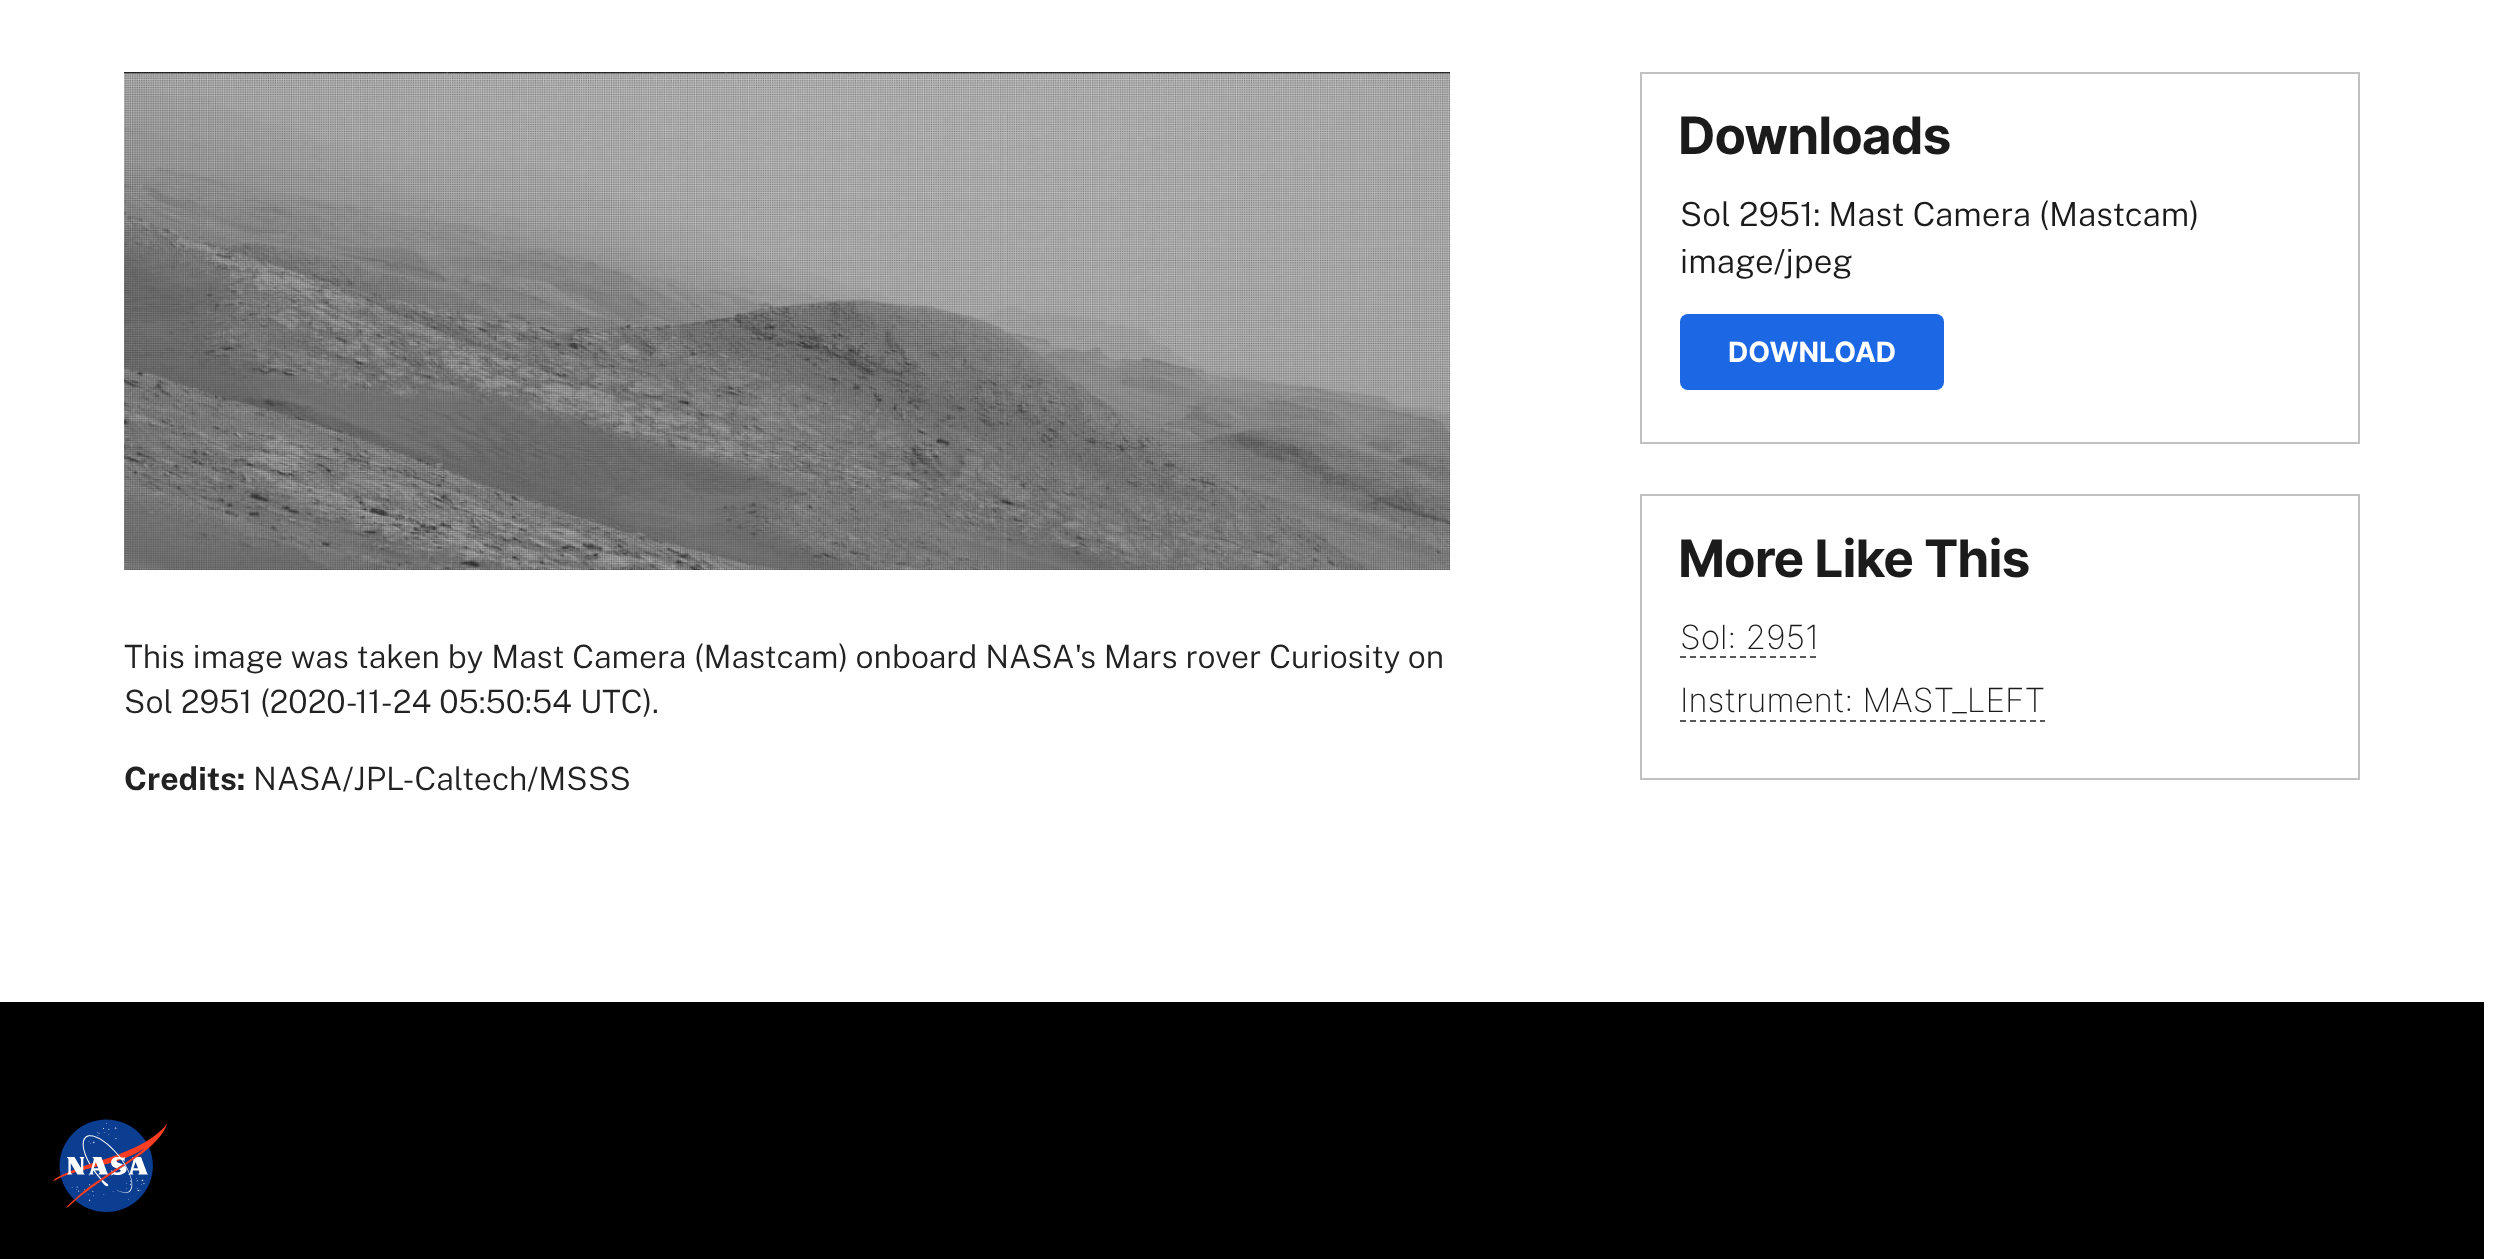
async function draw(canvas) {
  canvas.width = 2513
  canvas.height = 1259
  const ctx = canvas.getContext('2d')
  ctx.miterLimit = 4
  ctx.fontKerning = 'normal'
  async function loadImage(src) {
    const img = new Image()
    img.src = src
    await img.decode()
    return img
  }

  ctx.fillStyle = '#fff'
  ctx.fillRect(0, 0, 2513, 1259)
  ctx.drawImage(await loadImage('image0.png'), 124, 72, 1326, 498)
  ctx.font = '300 32px Public Sans'
  ctx.fillStyle = '#222'
  ctx.fillText('This image was taken by Mast Camera (Mastcam) onboard NASA\'s Mars rover Curiosity on', 124, 668)
  ctx.fillText('Sol 2951 (2020-11-24 05:50:54 UTC).', 124, 713)
  ctx.font = 'bold 32px Public Sans'
  ctx.fillText('Credits:', 124, 790)
  ctx.font = '300 32px Public Sans'
  ctx.fillText('NASA/JPL-Caltech/MSSS', 253, 790)
  ctx.strokeStyle = '#c1c1c1'
  ctx.lineWidth = 2
  ctx.strokeRect(1641, 73, 718, 370)
  ctx.letterSpacing = '-1px'
  ctx.font = 'bold 51.5px Inter'
  ctx.fillStyle = '#1b1b1b'
  ctx.fillText('Downloads', 1678, 154)
  ctx.letterSpacing = '0px'
  ctx.font = '300 33.25px Public Sans'
  ctx.fillText('Sol 2951: Mast Camera (Mastcam)', 1680, 226)
  ctx.fillText('image/jpeg', 1680, 273)
  ctx.fillStyle = '#1c67e3'
  ctx.beginPath()
  ctx.roundRect(1680, 314, 264, 76, 8)
  ctx.fill()
  ctx.font = 'bold 28px Inter'
  ctx.fillStyle = '#fff'
  ctx.fillText('DOWNLOAD', 1728, 362)
  ctx.strokeRect(1641, 495, 718, 284)
  ctx.letterSpacing = '-1px'
  ctx.font = 'bold 51.5px Inter'
  ctx.fillStyle = '#1b1b1b'
  ctx.fillText('More Like This', 1678, 577)
  ctx.letterSpacing = '0px'
  ctx.font = '200 33.25px Inter'
  ctx.fillText('Sol: 2951', 1680, 649)
  ctx.beginPath()
  ctx.moveTo(1680, 657)
  ctx.lineTo(1819, 657)
  ctx.strokeStyle = '#58585b'
  ctx.setLineDash([6, 4])
  ctx.stroke()
  ctx.fillText('Instrument: MAST_LEFT', 1680, 712)
  ctx.beginPath()
  ctx.moveTo(1680, 721)
  ctx.lineTo(2045, 721)
  ctx.stroke()
  ctx.fillStyle = '#000'
  ctx.fillRect(0, 1002, 2484, 257)
  ctx.drawImage(await loadImage('image1.png'), 53, 1119, 115, 93)
}

draw(document.querySelector('canvas'))
